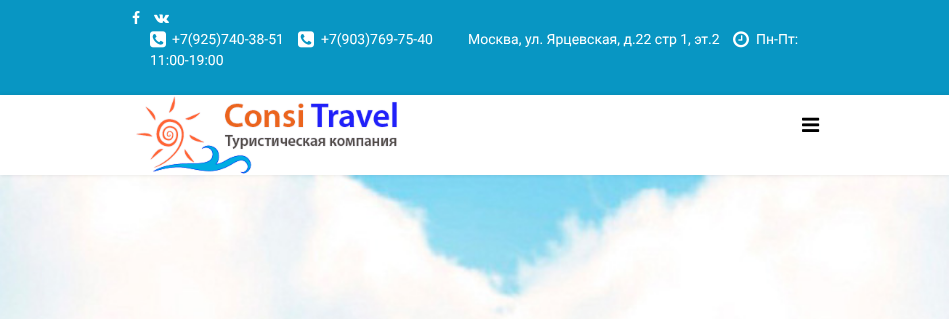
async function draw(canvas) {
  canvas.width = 949
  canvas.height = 319
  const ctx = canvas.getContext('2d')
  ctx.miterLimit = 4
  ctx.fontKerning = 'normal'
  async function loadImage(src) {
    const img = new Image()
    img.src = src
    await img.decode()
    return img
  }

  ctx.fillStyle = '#fff'
  ctx.fillRect(0, 0, 949, 319)
  ctx.fillStyle = '#0896c3'
  ctx.fillRect(0, 0, 949, 95)
  ctx.drawImage(await loadImage('image0.png'), 132, 11, 8, 13)
  ctx.drawImage(await loadImage('image1.png'), 154, 14, 15, 9)
  ctx.drawImage(await loadImage('image2.png'), 150, 31, 16, 17)
  ctx.font = '14px Roboto'
  ctx.fillStyle = '#fff'
  ctx.fillText('+7(925)740-38-51', 172, 44)
  ctx.drawImage(await loadImage('image2.png'), 298, 31, 16, 17)
  ctx.fillText('+7(903)769-75-40', 321, 44)
  ctx.fillText('Москва, ул. Ярцевская, д.22 стр 1, эт.2', 468, 44)
  ctx.drawImage(await loadImage('image3.png'), 733, 31, 16, 17)
  ctx.fillText('Пн-Пт:', 756, 44)
  ctx.fillText('11:00-19:00', 150, 65)
  ctx.drawImage(await loadImage('image6.png'), 0, 175, 949, 144)
  ctx.save()
  ctx.beginPath()
  ctx.moveTo(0, 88)
  ctx.lineTo(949, 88)
  ctx.lineTo(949, 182)
  ctx.lineTo(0, 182)
  ctx.closePath()
  ctx.moveTo(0, 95)
  ctx.lineTo(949, 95)
  ctx.lineTo(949, 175)
  ctx.lineTo(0, 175)
  ctx.closePath()
  ctx.clip('evenodd')
  ctx.fillStyle = '#0000001a'
  ctx.filter = 'blur(2px)'
  ctx.beginPath()
  ctx.rect(0, 95, 949, 80)
  ctx.fill()
  ctx.filter = 'none'
  ctx.restore()
  ctx.drawImage(await loadImage('image4.png'), 136, 96, 262, 78)
  ctx.drawImage(await loadImage('image5.png'), 802, 117, 18, 15)
}

draw(document.querySelector('canvas'))
